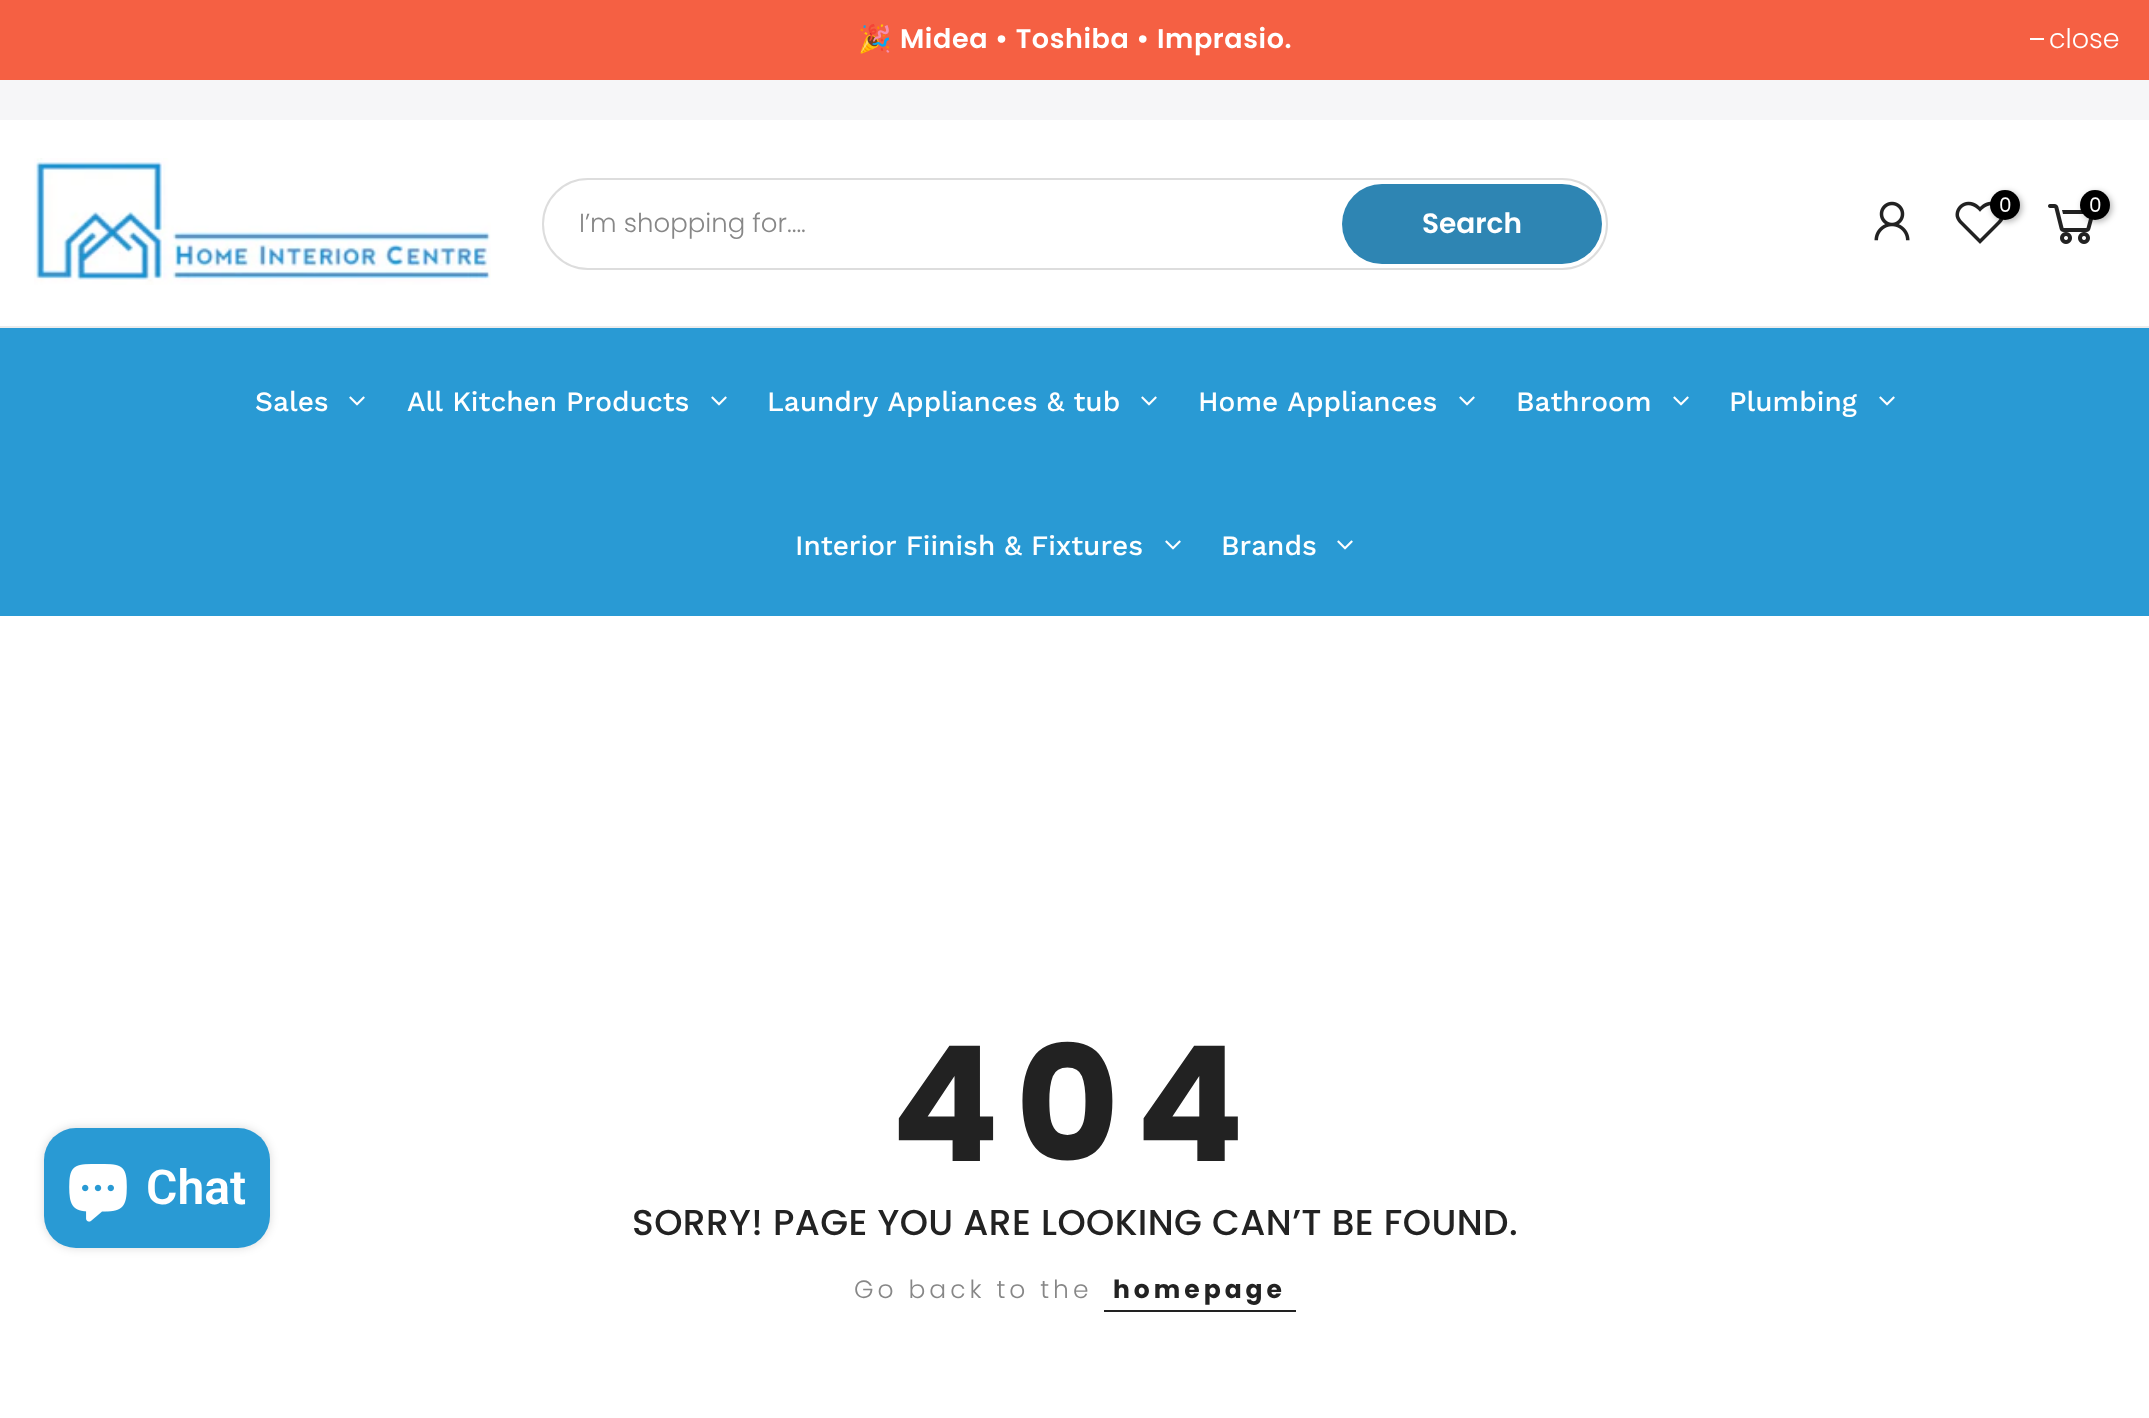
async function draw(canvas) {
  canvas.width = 2149
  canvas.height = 1418
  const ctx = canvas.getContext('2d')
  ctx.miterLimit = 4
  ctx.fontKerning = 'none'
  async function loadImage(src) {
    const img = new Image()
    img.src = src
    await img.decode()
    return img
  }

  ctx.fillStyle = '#fff'
  ctx.fillRect(0, 0, 2149, 1418)
  ctx.fillStyle = '#f56043'
  ctx.fillRect(0, 0, 2149, 80)
  ctx.letterSpacing = '0.6px'
  ctx.font = 'bold 27px Noto Color Emoji'
  ctx.fillStyle = '#fff'
  ctx.fillText('🎉', 858, 48)
  ctx.font = '600 27px Poppins'
  ctx.fillText('Midea • Toshiba • Imprasio.', 900, 48)
  ctx.fillRect(2030, 38, 14, 2)
  ctx.letterSpacing = '0px'
  ctx.font = '300 27px Poppins'
  ctx.fillText('close', 2049, 48)
  ctx.fillStyle = '#00000026'
  ctx.filter = 'blur(5px)'
  ctx.beginPath()
  ctx.roundRect(44, 1128, 226, 120, 32)
  ctx.fill()
  ctx.filter = 'none'
  ctx.fillStyle = '#299ad4'
  ctx.beginPath()
  ctx.roundRect(44, 1128, 226, 120, 32)
  ctx.fill()
  ctx.drawImage(await loadImage('image0.png'), 69, 1164, 58, 58)
  ctx.font = '600 48px Roboto'
  ctx.fillStyle = '#fff'
  ctx.fillText('Chat', 146, 1204)
  ctx.fillStyle = '#f6f6f8'
  ctx.fillRect(0, 80, 2149, 40)
  ctx.drawImage(await loadImage('image1.png'), 34, 158, 457, 127)
  ctx.drawImage(await loadImage('image2.png'), 1874, 201, 36, 40)
  ctx.drawImage(await loadImage('image3.png'), 1955, 201, 49, 43)
  ctx.fillStyle = '#0000004d'
  ctx.filter = 'blur(3px)'
  ctx.beginPath()
  ctx.roundRect(1992, 192, 30, 30, 15)
  ctx.fill()
  ctx.filter = 'none'
  ctx.fillStyle = '#000'
  ctx.beginPath()
  ctx.arc(2005, 205, 15, 0, 2 * Math.PI)
  ctx.fill()
  ctx.font = '20px Poppins'
  ctx.fillStyle = '#fff'
  ctx.fillText('0', 1999, 212)
  ctx.drawImage(await loadImage('image4.png'), 2048, 204, 45, 40)
  ctx.fillStyle = '#0000004d'
  ctx.filter = 'blur(3px)'
  ctx.beginPath()
  ctx.roundRect(2082, 192, 30, 30, 15)
  ctx.fill()
  ctx.filter = 'none'
  ctx.fillStyle = '#000'
  ctx.beginPath()
  ctx.arc(2095, 205, 15, 0, 2 * Math.PI)
  ctx.fill()
  ctx.fillStyle = '#fff'
  ctx.fillText('0', 2089, 212)
  ctx.beginPath()
  ctx.roundRect(543, 179, 1064, 90, 45)
  ctx.strokeStyle = '#ddd'
  ctx.lineWidth = 2
  ctx.stroke()
  ctx.font = '300 26px Poppins'
  ctx.fillStyle = '#878787'
  ctx.fillText('I’m shopping for....', 579, 232)
  ctx.fillStyle = '#2e85b3'
  ctx.beginPath()
  ctx.roundRect(1342, 184, 260, 80, 40)
  ctx.fill()
  ctx.font = '600 28px Poppins'
  ctx.fillStyle = '#fff'
  ctx.fillText('Search', 1422, 233)
  ctx.fillStyle = '#299ad4'
  ctx.fillRect(0, 328, 2149, 288)
  ctx.fillStyle = '#ececec'
  ctx.fillRect(0, 326, 2149, 2)
  ctx.font = '500 28px Work Sans'
  ctx.fillStyle = '#fff'
  ctx.fillText('Sales', 255, 411)
  ctx.drawImage(await loadImage('image5.png'), 349, 396, 16, 10)
  ctx.fillText('All Kitchen Products', 407, 411)
  ctx.drawImage(await loadImage('image5.png'), 711, 396, 16, 10)
  ctx.fillText('Laundry Appliances & tub', 767, 411)
  ctx.drawImage(await loadImage('image5.png'), 1141, 396, 16, 10)
  ctx.fillText('Home Appliances', 1198, 411)
  ctx.drawImage(await loadImage('image5.png'), 1459, 396, 16, 10)
  ctx.fillText('Bathroom', 1516, 411)
  ctx.drawImage(await loadImage('image5.png'), 1673, 396, 16, 10)
  ctx.fillText('Plumbing', 1729, 411)
  ctx.drawImage(await loadImage('image5.png'), 1879, 396, 16, 10)
  ctx.fillText('Interior Fiinish & Fixtures', 795, 555)
  ctx.drawImage(await loadImage('image5.png'), 1165, 540, 16, 10)
  ctx.fillText('Brands', 1221, 555)
  ctx.drawImage(await loadImage('image5.png'), 1337, 540, 16, 10)
  ctx.letterSpacing = '16px'
  ctx.font = 'bold 160px Poppins'
  ctx.fillStyle = '#222'
  ctx.fillText('404', 891, 1161)
  ctx.letterSpacing = '0.4px'
  ctx.font = '500 36px Poppins'
  ctx.fillText('SORRY! PAGE YOU ARE LOOKING CAN’T BE FOUND.', 632, 1235)
  ctx.letterSpacing = '4px'
  ctx.font = '300 25px Poppins'
  ctx.fillStyle = '#878787'
  ctx.fillText('Go back to the', 854, 1298)
  ctx.font = 'bold 25px Poppins'
  ctx.fillStyle = '#222'
  ctx.fillText('homepage', 1113, 1298)
  ctx.fillRect(1104, 1310, 192, 2)
}

draw(document.querySelector('canvas'))
